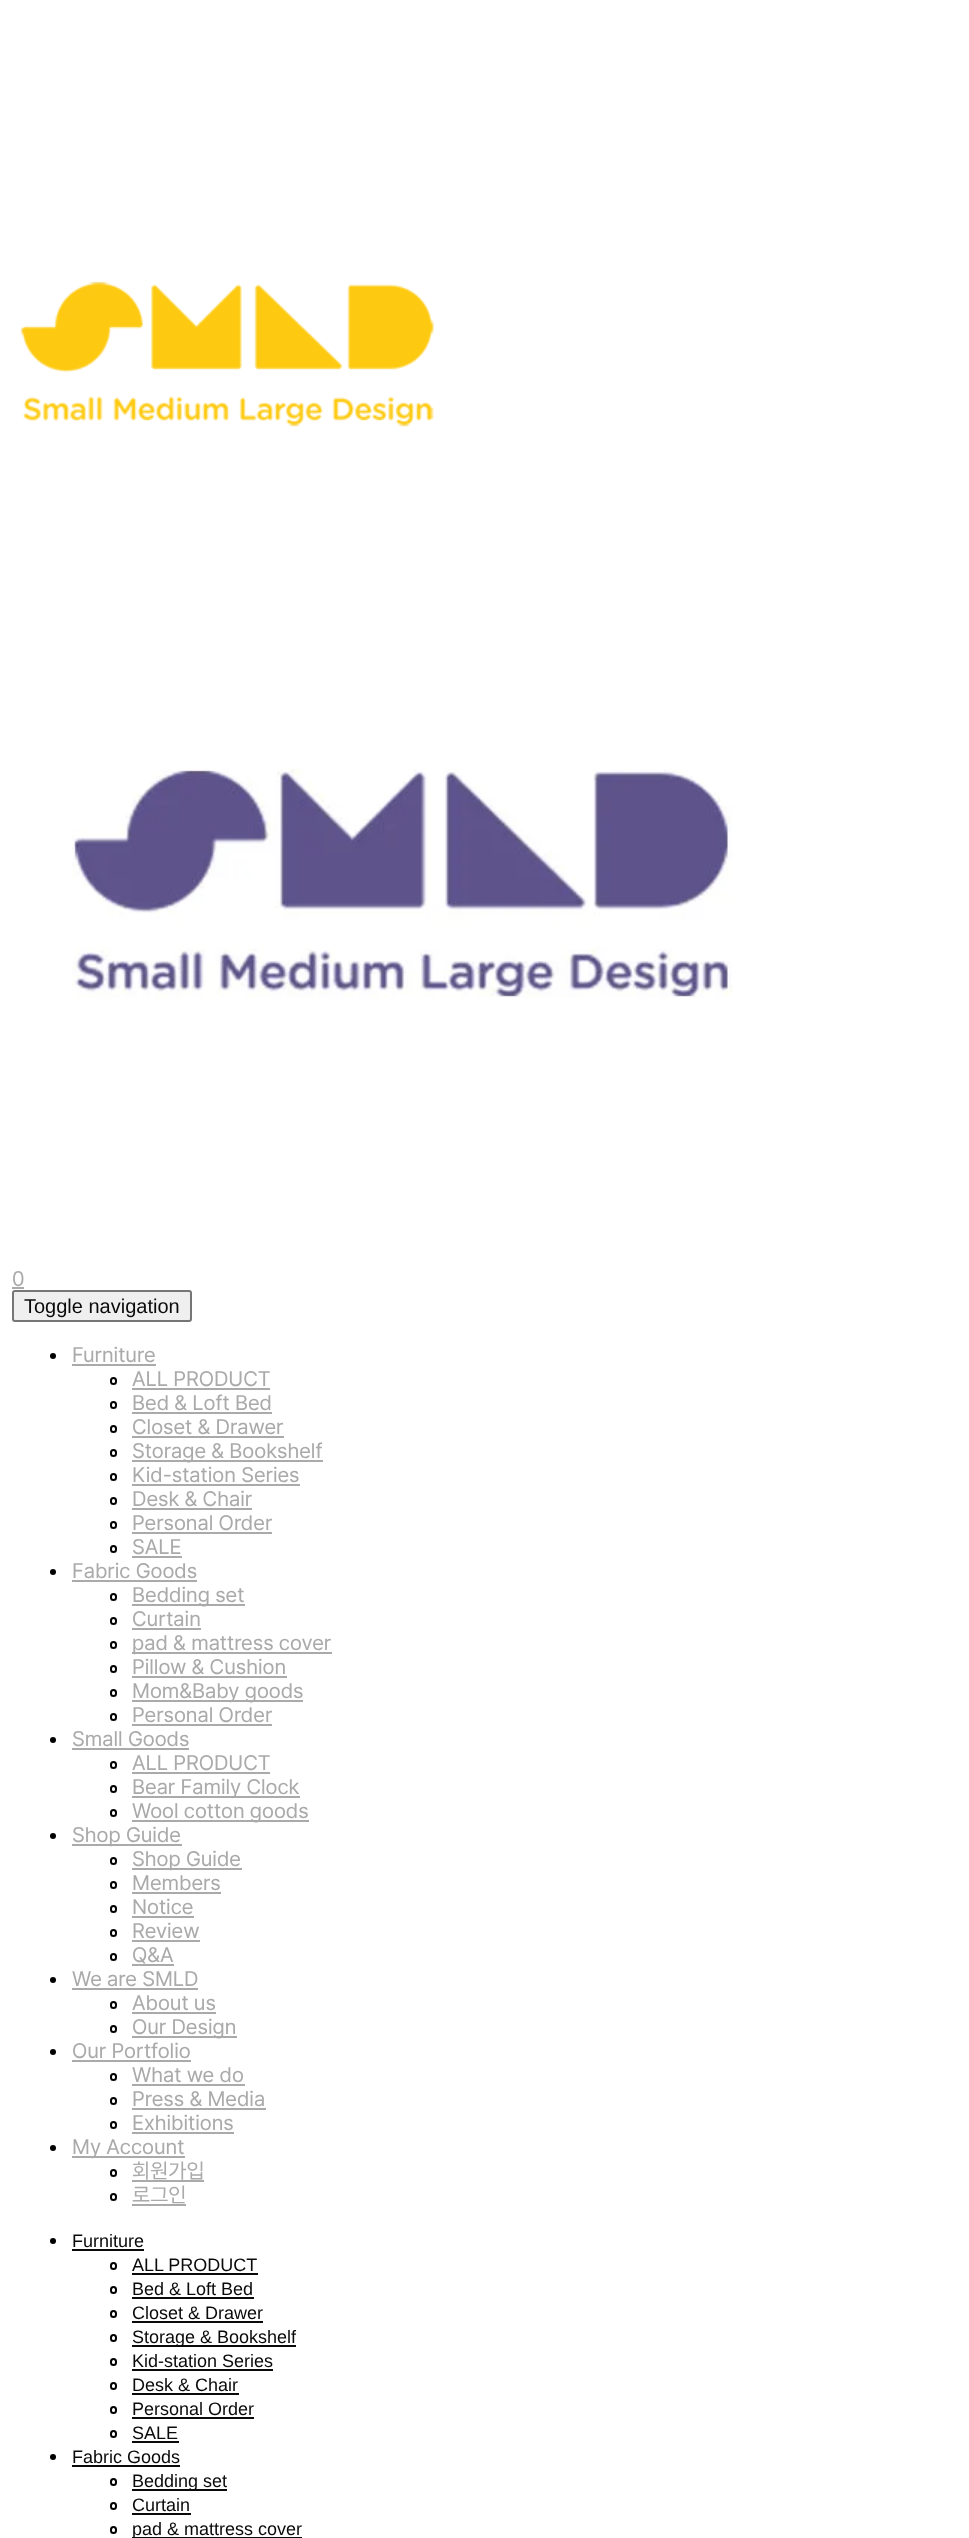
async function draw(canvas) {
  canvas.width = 969
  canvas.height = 2538
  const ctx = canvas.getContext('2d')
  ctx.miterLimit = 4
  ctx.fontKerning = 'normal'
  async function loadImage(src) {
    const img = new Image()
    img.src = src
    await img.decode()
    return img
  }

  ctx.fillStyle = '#fff'
  ctx.fillRect(0, 0, 969, 2538)
  ctx.drawImage(await loadImage('image0.png'), 20, 281, 414, 146)
  ctx.drawImage(await loadImage('image1.png'), 72, 768, 661, 230)
  ctx.font = '21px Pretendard'
  ctx.fillStyle = '#aaa'
  ctx.fillText('0', 12, 1286)
  ctx.fillRect(12, 1287, 12, 2)
  ctx.fillStyle = '#efefef'
  ctx.beginPath()
  ctx.roundRect(13, 1291, 178, 30, 2)
  ctx.fill()
  ctx.strokeStyle = '#767676'
  ctx.lineWidth = 2
  ctx.stroke()
  ctx.font = '20px Liberation Sans'
  ctx.fillStyle = '#0a0a0a'
  ctx.fillText('Toggle navigation', 24, 1313)
  ctx.fillStyle = '#000'
  ctx.beginPath()
  ctx.arc(53, 1356, 3, 0, 2 * Math.PI)
  ctx.fill()
  ctx.font = '21px Pretendard'
  ctx.fillStyle = '#aaa'
  ctx.fillText('Furniture', 72, 1362)
  ctx.fillRect(72, 1364, 84, 2)
  ctx.beginPath()
  ctx.roundRect(111, 1378, 5, 6, 2.5)
  ctx.strokeStyle = '#000'
  ctx.stroke()
  ctx.fillText('ALL PRODUCT', 132, 1386)
  ctx.fillRect(132, 1388, 138, 2)
  ctx.beginPath()
  ctx.roundRect(111, 1402, 5, 6, 2.5)
  ctx.stroke()
  ctx.fillText('Bed & Loft Bed', 132, 1410)
  ctx.fillRect(132, 1412, 140, 2)
  ctx.beginPath()
  ctx.roundRect(111, 1426, 5, 6, 2.5)
  ctx.stroke()
  ctx.fillText('Closet & Drawer', 132, 1434)
  ctx.fillRect(132, 1436, 152, 2)
  ctx.beginPath()
  ctx.roundRect(111, 1450, 5, 6, 2.5)
  ctx.stroke()
  ctx.fillRect(132, 1460, 191, 2)
  ctx.fillText('Storage & Bookshelf', 132, 1458)
  ctx.beginPath()
  ctx.roundRect(111, 1474, 5, 6, 2.5)
  ctx.stroke()
  ctx.fillText('Kid-station Series', 132, 1482)
  ctx.fillRect(132, 1484, 168, 2)
  ctx.beginPath()
  ctx.roundRect(111, 1498, 5, 6, 2.5)
  ctx.stroke()
  ctx.fillText('Desk & Chair', 132, 1506)
  ctx.fillRect(132, 1508, 120, 2)
  ctx.beginPath()
  ctx.roundRect(111, 1522, 5, 6, 2.5)
  ctx.stroke()
  ctx.fillText('Personal Order', 132, 1530)
  ctx.fillRect(132, 1532, 140, 2)
  ctx.beginPath()
  ctx.roundRect(111, 1546, 5, 6, 2.5)
  ctx.stroke()
  ctx.fillText('SALE', 132, 1554)
  ctx.fillRect(132, 1556, 50, 2)
  ctx.fillStyle = '#000'
  ctx.beginPath()
  ctx.arc(53, 1572, 3, 0, 2 * Math.PI)
  ctx.fill()
  ctx.fillStyle = '#aaa'
  ctx.fillText('Fabric Goods', 72, 1578)
  ctx.fillRect(72, 1580, 125, 2)
  ctx.beginPath()
  ctx.roundRect(111, 1594, 5, 6, 2.5)
  ctx.stroke()
  ctx.fillRect(132, 1604, 113, 2)
  ctx.fillText('Bedding set', 132, 1602)
  ctx.beginPath()
  ctx.roundRect(111, 1618, 5, 6, 2.5)
  ctx.stroke()
  ctx.fillText('Curtain', 132, 1626)
  ctx.fillRect(132, 1628, 69, 2)
  ctx.beginPath()
  ctx.roundRect(111, 1642, 5, 6, 2.5)
  ctx.stroke()
  ctx.fillRect(132, 1652, 200, 2)
  ctx.fillText('pad & mattress cover', 132, 1650)
  ctx.beginPath()
  ctx.roundRect(111, 1666, 5, 6, 2.5)
  ctx.stroke()
  ctx.fillText('Pillow & Cushion', 132, 1674)
  ctx.fillRect(132, 1676, 155, 2)
  ctx.beginPath()
  ctx.roundRect(111, 1690, 5, 6, 2.5)
  ctx.stroke()
  ctx.fillRect(132, 1700, 171, 2)
  ctx.fillText('Mom&Baby goods', 132, 1698)
  ctx.beginPath()
  ctx.roundRect(111, 1714, 5, 6, 2.5)
  ctx.stroke()
  ctx.fillText('Personal Order', 132, 1722)
  ctx.fillRect(132, 1724, 140, 2)
  ctx.fillStyle = '#000'
  ctx.beginPath()
  ctx.arc(53, 1740, 3, 0, 2 * Math.PI)
  ctx.fill()
  ctx.fillStyle = '#aaa'
  ctx.fillText('Small Goods', 72, 1746)
  ctx.fillRect(72, 1748, 117, 2)
  ctx.beginPath()
  ctx.roundRect(111, 1762, 5, 6, 2.5)
  ctx.stroke()
  ctx.fillText('ALL PRODUCT', 132, 1770)
  ctx.fillRect(132, 1772, 138, 2)
  ctx.beginPath()
  ctx.roundRect(111, 1786, 5, 6, 2.5)
  ctx.stroke()
  ctx.fillRect(132, 1796, 168, 2)
  ctx.fillText('Bear Family Clock', 132, 1794)
  ctx.beginPath()
  ctx.roundRect(111, 1810, 5, 6, 2.5)
  ctx.stroke()
  ctx.fillRect(132, 1820, 177, 2)
  ctx.fillText('Wool cotton goods', 132, 1818)
  ctx.fillStyle = '#000'
  ctx.beginPath()
  ctx.arc(53, 1836, 3, 0, 2 * Math.PI)
  ctx.fill()
  ctx.fillStyle = '#aaa'
  ctx.fillRect(72, 1844, 110, 2)
  ctx.fillText('Shop Guide', 72, 1842)
  ctx.beginPath()
  ctx.roundRect(111, 1858, 5, 6, 2.5)
  ctx.stroke()
  ctx.fillRect(132, 1868, 110, 2)
  ctx.fillText('Shop Guide', 132, 1866)
  ctx.beginPath()
  ctx.roundRect(111, 1882, 5, 6, 2.5)
  ctx.stroke()
  ctx.fillText('Members', 132, 1890)
  ctx.fillRect(132, 1892, 89, 2)
  ctx.beginPath()
  ctx.roundRect(111, 1906, 5, 6, 2.5)
  ctx.stroke()
  ctx.fillText('Notice', 132, 1914)
  ctx.fillRect(132, 1916, 62, 2)
  ctx.beginPath()
  ctx.roundRect(111, 1930, 5, 6, 2.5)
  ctx.stroke()
  ctx.fillText('Review', 132, 1938)
  ctx.fillRect(132, 1940, 68, 2)
  ctx.beginPath()
  ctx.roundRect(111, 1954, 5, 6, 2.5)
  ctx.stroke()
  ctx.fillText('Q&A', 132, 1962)
  ctx.fillRect(132, 1964, 42, 2)
  ctx.fillStyle = '#000'
  ctx.beginPath()
  ctx.arc(53, 1980, 3, 0, 2 * Math.PI)
  ctx.fill()
  ctx.fillStyle = '#aaa'
  ctx.fillText('We are SMLD', 72, 1986)
  ctx.fillRect(72, 1988, 126, 2)
  ctx.beginPath()
  ctx.roundRect(111, 2002, 5, 6, 2.5)
  ctx.stroke()
  ctx.fillText('About us', 132, 2010)
  ctx.fillRect(132, 2012, 84, 2)
  ctx.beginPath()
  ctx.roundRect(111, 2026, 5, 6, 2.5)
  ctx.stroke()
  ctx.fillRect(132, 2036, 105, 2)
  ctx.fillText('Our Design', 132, 2034)
  ctx.fillStyle = '#000'
  ctx.beginPath()
  ctx.arc(53, 2052, 3, 0, 2 * Math.PI)
  ctx.fill()
  ctx.fillStyle = '#aaa'
  ctx.fillText('Our Portfolio', 72, 2058)
  ctx.fillRect(72, 2060, 119, 2)
  ctx.beginPath()
  ctx.roundRect(111, 2074, 5, 6, 2.5)
  ctx.stroke()
  ctx.fillText('What we do', 132, 2082)
  ctx.fillRect(132, 2084, 113, 2)
  ctx.beginPath()
  ctx.roundRect(111, 2098, 5, 6, 2.5)
  ctx.stroke()
  ctx.fillText('Press & Media', 132, 2106)
  ctx.fillRect(132, 2108, 134, 2)
  ctx.beginPath()
  ctx.roundRect(111, 2122, 5, 6, 2.5)
  ctx.stroke()
  ctx.fillText('Exhibitions', 132, 2130)
  ctx.fillRect(132, 2132, 102, 2)
  ctx.fillStyle = '#000'
  ctx.beginPath()
  ctx.arc(53, 2148, 3, 0, 2 * Math.PI)
  ctx.fill()
  ctx.fillStyle = '#aaa'
  ctx.fillRect(72, 2156, 113, 2)
  ctx.fillText('My Account', 72, 2154)
  ctx.beginPath()
  ctx.roundRect(111, 2170, 5, 6, 2.5)
  ctx.stroke()
  ctx.fillText('회원가입', 132, 2178)
  ctx.fillRect(132, 2180, 72, 2)
  ctx.beginPath()
  ctx.roundRect(111, 2194, 5, 6, 2.5)
  ctx.stroke()
  ctx.fillText('로그인', 132, 2202)
  ctx.fillRect(132, 2204, 54, 2)
  ctx.fillStyle = '#000'
  ctx.beginPath()
  ctx.arc(53, 2241, 3, 0, 2 * Math.PI)
  ctx.fill()
  ctx.font = '18px Liberation Sans'
  ctx.fillStyle = '#0a0a0a'
  ctx.fillText('Furniture', 72, 2247)
  ctx.fillRect(72, 2249, 72, 2)
  ctx.beginPath()
  ctx.roundRect(111, 2263, 5, 6, 2.5)
  ctx.stroke()
  ctx.fillText('ALL PRODUCT', 132, 2271)
  ctx.fillRect(132, 2273, 126, 2)
  ctx.beginPath()
  ctx.roundRect(111, 2287, 5, 6, 2.5)
  ctx.stroke()
  ctx.fillText('Bed & Loft Bed', 132, 2295)
  ctx.fillRect(132, 2297, 122, 2)
  ctx.beginPath()
  ctx.roundRect(111, 2311, 5, 6, 2.5)
  ctx.stroke()
  ctx.fillText('Closet & Drawer', 132, 2319)
  ctx.fillRect(132, 2321, 131, 2)
  ctx.beginPath()
  ctx.roundRect(111, 2335, 5, 6, 2.5)
  ctx.stroke()
  ctx.fillRect(132, 2345, 164, 2)
  ctx.fillText('Storage & Bookshelf', 132, 2343)
  ctx.beginPath()
  ctx.roundRect(111, 2359, 5, 6, 2.5)
  ctx.stroke()
  ctx.fillText('Kid-station Series', 132, 2367)
  ctx.fillRect(132, 2369, 141, 2)
  ctx.beginPath()
  ctx.roundRect(111, 2383, 5, 6, 2.5)
  ctx.stroke()
  ctx.fillText('Desk & Chair', 132, 2391)
  ctx.fillRect(132, 2393, 107, 2)
  ctx.beginPath()
  ctx.roundRect(111, 2407, 5, 6, 2.5)
  ctx.stroke()
  ctx.fillText('Personal Order', 132, 2415)
  ctx.fillRect(132, 2417, 122, 2)
  ctx.beginPath()
  ctx.roundRect(111, 2431, 5, 6, 2.5)
  ctx.stroke()
  ctx.fillText('SALE', 132, 2439)
  ctx.fillRect(132, 2441, 47, 2)
  ctx.fillStyle = '#000'
  ctx.beginPath()
  ctx.arc(53, 2457, 3, 0, 2 * Math.PI)
  ctx.fill()
  ctx.fillStyle = '#0a0a0a'
  ctx.fillText('Fabric Goods', 72, 2463)
  ctx.fillRect(72, 2465, 108, 2)
  ctx.beginPath()
  ctx.roundRect(111, 2479, 5, 6, 2.5)
  ctx.stroke()
  ctx.fillRect(132, 2489, 95, 2)
  ctx.fillText('Bedding set', 132, 2487)
  ctx.beginPath()
  ctx.roundRect(111, 2503, 5, 6, 2.5)
  ctx.stroke()
  ctx.fillText('Curtain', 132, 2511)
  ctx.fillRect(132, 2513, 59, 2)
  ctx.beginPath()
  ctx.roundRect(111, 2527, 5, 6, 2.5)
  ctx.stroke()
  ctx.fillRect(132, 2537, 170, 1)
  ctx.fillText('pad & mattress cover', 132, 2535)
}

draw(document.querySelector('canvas'))
